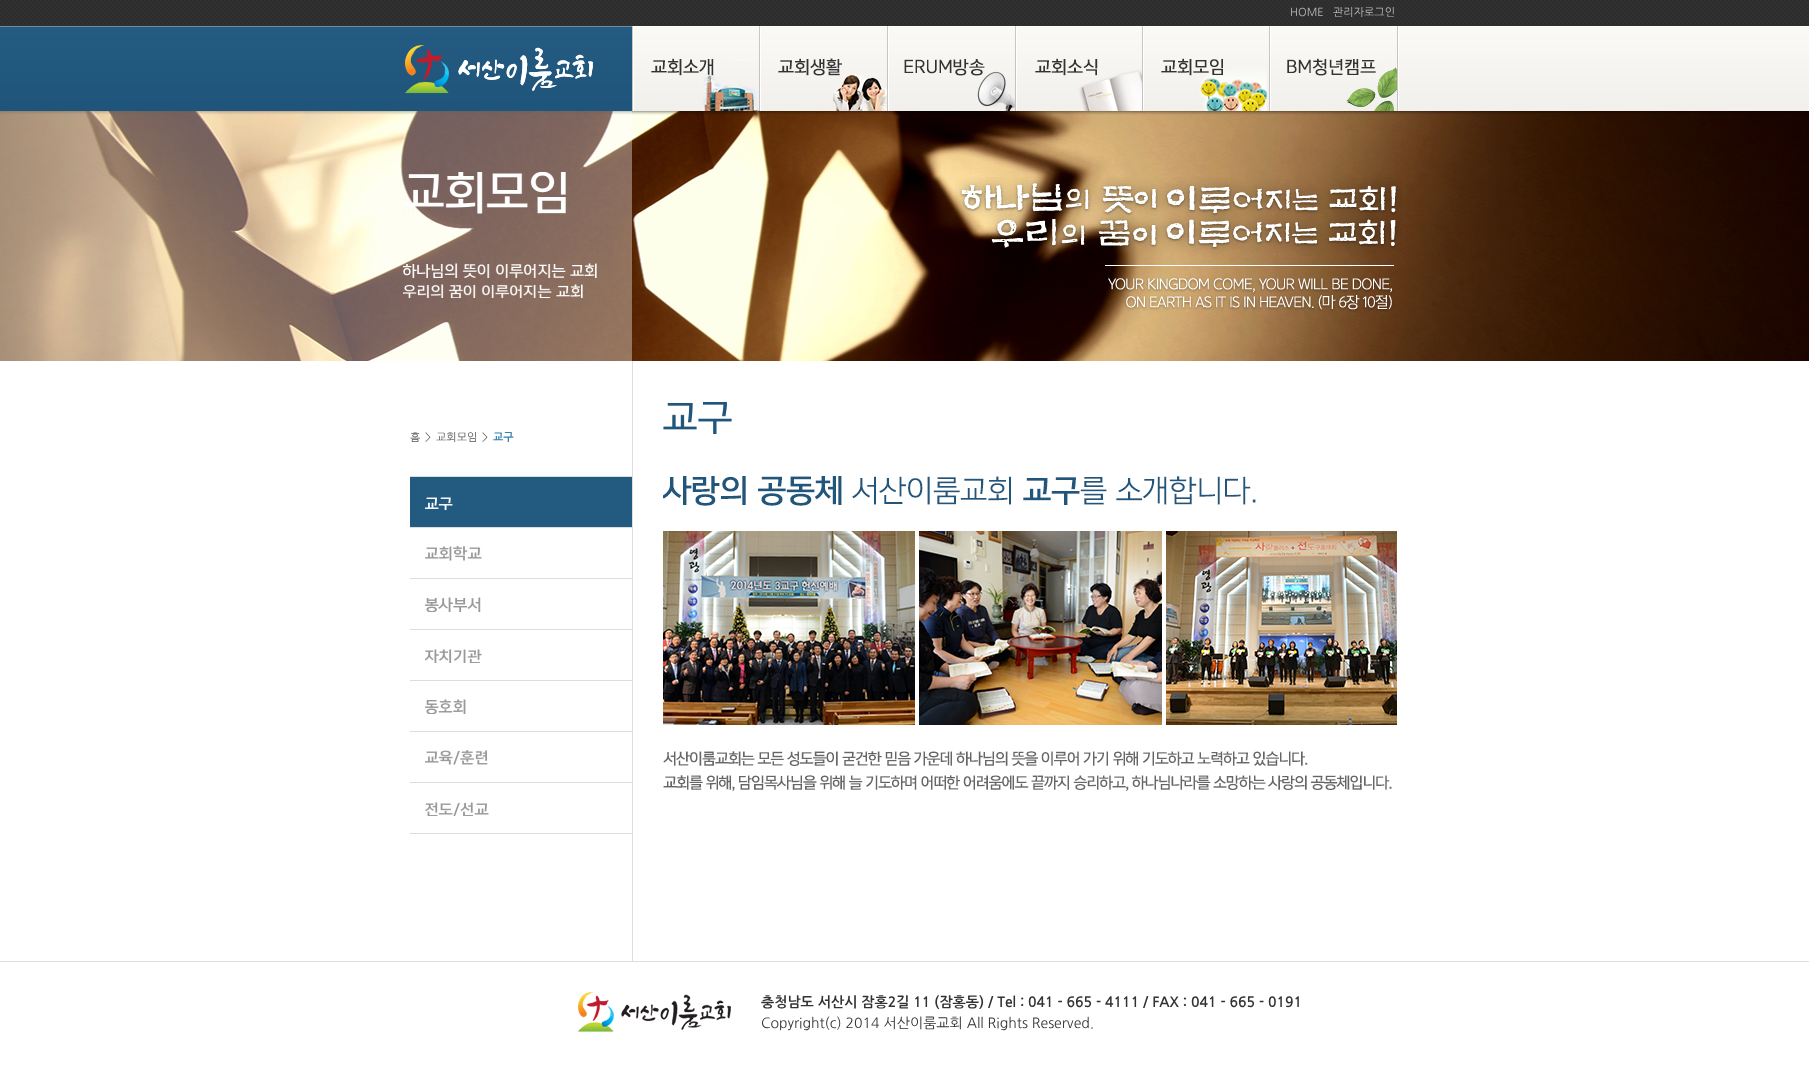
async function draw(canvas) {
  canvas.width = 1809
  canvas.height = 1092
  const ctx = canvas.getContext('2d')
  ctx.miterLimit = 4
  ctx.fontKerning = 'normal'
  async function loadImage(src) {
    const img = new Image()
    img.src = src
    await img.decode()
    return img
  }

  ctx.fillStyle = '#fff'
  ctx.fillRect(0, 0, 1809, 1092)
  ctx.drawImage(await loadImage('image0.png'), 0, 0, 1809, 26)
  ctx.font = '11px NanumGothic'
  ctx.fillStyle = '#bbb'
  ctx.fillText('HOME', 1290, 16)
  ctx.fillText('관리자로그인', 1333, 16)
  ctx.drawImage(await loadImage('image1.png'), 0, 26, 1809, 85)
  ctx.drawImage(await loadImage('image2.png'), 405, 45, 188, 49)
  ctx.drawImage(await loadImage('image3.png'), 632, 26, 128, 85)
  ctx.drawImage(await loadImage('image4.png'), 760, 26, 128, 85)
  ctx.drawImage(await loadImage('image5.png'), 888, 26, 128, 85)
  ctx.drawImage(await loadImage('image6.png'), 1016, 26, 127, 85)
  ctx.drawImage(await loadImage('image7.png'), 1143, 26, 127, 85)
  ctx.drawImage(await loadImage('image8.png'), 1270, 26, 129, 85)
  ctx.drawImage(await loadImage('image9.png'), 0, 111, 1809, 250)
  ctx.fillStyle = '#ffffff5e'
  ctx.fillRect(0, 111, 632, 250)
  ctx.drawImage(await loadImage('image10.png'), 403, 172, 163, 42)
  ctx.drawImage(await loadImage('image11.png'), 403, 263, 194, 15)
  ctx.drawImage(await loadImage('image12.png'), 403, 284, 180, 14)
  ctx.drawImage(await loadImage('image13.png'), 955, 177, 447, 135)
  ctx.fillStyle = '#555'
  ctx.fillText('홈', 410, 441)
  ctx.fillText('>', 425, 441)
  ctx.fillText('교회모임', 436, 441)
  ctx.fillText('>', 482, 441)
  ctx.font = 'bold 11px NanumGothic'
  ctx.fillStyle = '#3781b4'
  ctx.fillText('교구', 493, 441)
  ctx.fillStyle = '#ddd'
  ctx.fillRect(410, 476, 222, 1)
  ctx.fillRect(410, 527, 222, 1)
  ctx.fillStyle = '#235a80'
  ctx.fillRect(410, 477, 222, 50)
  ctx.drawImage(await loadImage('image14.png'), 425, 497, 28, 13)
  ctx.fillStyle = '#ddd'
  ctx.fillRect(410, 578, 222, 1)
  ctx.drawImage(await loadImage('image15.png'), 425, 546, 57, 15)
  ctx.fillRect(410, 629, 222, 1)
  ctx.drawImage(await loadImage('image16.png'), 425, 597, 56, 15)
  ctx.fillRect(410, 680, 222, 1)
  ctx.drawImage(await loadImage('image17.png'), 425, 649, 57, 14)
  ctx.fillRect(410, 731, 222, 1)
  ctx.drawImage(await loadImage('image18.png'), 425, 699, 41, 15)
  ctx.fillRect(410, 782, 222, 1)
  ctx.drawImage(await loadImage('image19.png'), 425, 750, 63, 15)
  ctx.fillRect(410, 833, 222, 1)
  ctx.drawImage(await loadImage('image20.png'), 425, 802, 64, 14)
  ctx.fillRect(632, 361, 1, 600)
  ctx.drawImage(await loadImage('image21.png'), 663, 402, 69, 32)
  ctx.drawImage(await loadImage('image22.png'), 663, 476, 735, 316)
  ctx.fillRect(0, 961, 1809, 1)
  ctx.drawImage(await loadImage('image23.png'), 578, 992, 153, 40)
  ctx.font = 'bold 14.05px NanumGothic'
  ctx.fillStyle = '#333'
  ctx.fillText('충청남도 서산시 잠홍2길 11 (잠홍동) / Tel : 041 - 665 - 4111 / FAX : 041 - 665 - 0191', 761, 1007)
  ctx.font = '14.05px NanumGothic'
  ctx.fillText('Copyright(c) 2014 서산이룸교회 All Rights Reserved.', 761, 1028)
}

draw(document.querySelector('canvas'))
